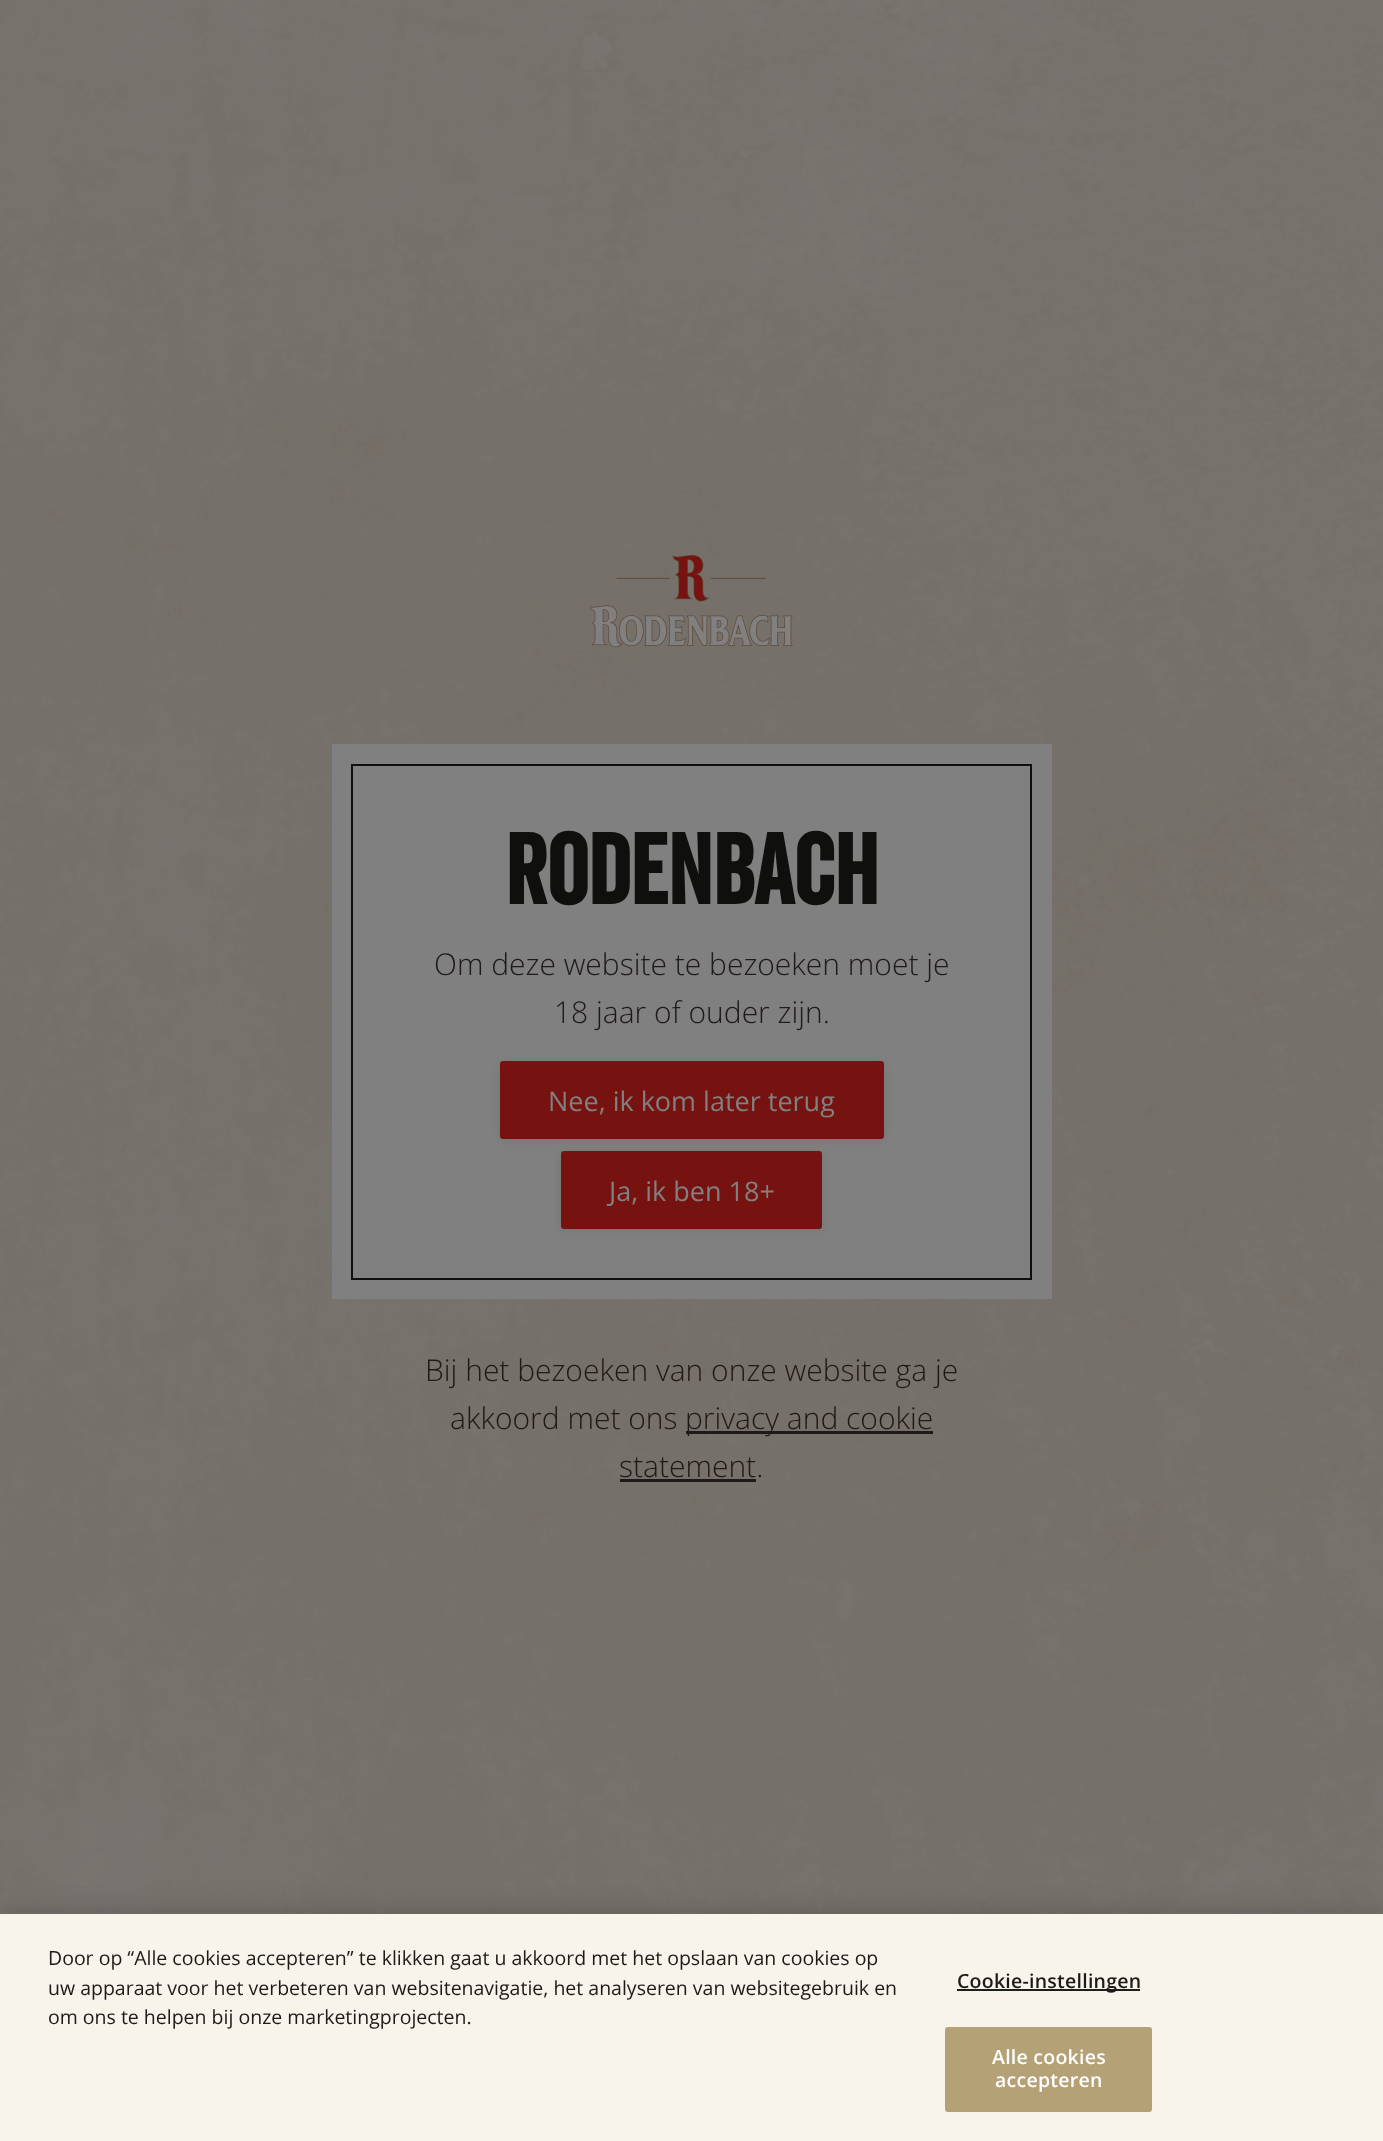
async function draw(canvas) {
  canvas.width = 1383
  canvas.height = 2141
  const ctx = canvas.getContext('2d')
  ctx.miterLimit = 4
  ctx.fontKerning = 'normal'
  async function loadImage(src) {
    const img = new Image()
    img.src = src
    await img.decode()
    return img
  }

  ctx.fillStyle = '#fff'
  ctx.fillRect(0, 0, 1383, 2141)
  ctx.drawImage(await loadImage('image0.png'), 0, 0, 1383, 1914)
  ctx.drawImage(await loadImage('image1.png'), 590, 555, 203, 93)
  ctx.fillStyle = '#808080'
  ctx.fillRect(332, 744, 720, 555)
  ctx.fillStyle = '#00000017'
  ctx.filter = 'blur(4.5px)'
  ctx.beginPath()
  ctx.roundRect(500, 1062, 384, 78, 3)
  ctx.fill()
  ctx.filter = 'none'
  ctx.fillStyle = '#761310'
  ctx.beginPath()
  ctx.roundRect(500, 1061, 384, 78, 3)
  ctx.fill()
  ctx.fillStyle = '#00000017'
  ctx.filter = 'blur(4.5px)'
  ctx.beginPath()
  ctx.roundRect(561, 1152, 261, 78, 3)
  ctx.fill()
  ctx.filter = 'none'
  ctx.fillStyle = '#761310'
  ctx.beginPath()
  ctx.roundRect(561, 1151, 261, 78, 3)
  ctx.fill()
  ctx.strokeStyle = '#0f0f0e'
  ctx.lineWidth = 2
  ctx.strokeRect(352, 765, 679, 514)
  ctx.font = 'bold 96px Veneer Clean'
  ctx.fillStyle = '#0f0f0e'
  ctx.fillText('Rodenbach', 505, 904)
  ctx.font = '300 30px Open Sans'
  ctx.fillStyle = '#201919'
  ctx.fillText('Om deze website te bezoeken moet je', 434, 975)
  ctx.fillText('18 jaar of ouder zijn.', 554, 1023)
  ctx.font = '27px Open Sans'
  ctx.fillStyle = '#808080'
  ctx.fillText('Nee, ik kom later terug', 548, 1111)
  ctx.fillText('Ja, ik ben 18+', 609, 1201)
  ctx.font = '300 30px Open Sans'
  ctx.fillStyle = '#201919'
  ctx.fillText('Bij het bezoeken van onze website ga je', 425, 1381)
  ctx.fillText('akkoord met ons', 450, 1429)
  ctx.fillRect(686, 1431, 247, 3)
  ctx.fillText('privacy and cookie', 685, 1429)
  ctx.fillText('statement.', 619, 1477)
  ctx.fillRect(620, 1479, 136, 3)
  ctx.fillStyle = '#00000033'
  ctx.filter = 'blur(13.5px)'
  ctx.beginPath()
  ctx.rect(0, 1914, 1383, 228)
  ctx.fill()
  ctx.filter = 'none'
  ctx.fillStyle = '#f7f4eb'
  ctx.fillRect(0, 1914, 1383, 227)
  ctx.font = '19.5px Open Sans'
  ctx.fillStyle = '#201919'
  ctx.fillText('Door op “Alle cookies accepteren” te klikken gaat u akkoord met het opslaan van cookies op', 48, 1965)
  ctx.fillText('uw apparaat voor het verbeteren van websitenavigatie, het analyseren van websitegebruik en', 48, 1995)
  ctx.fillText('om ons te helpen bij onze marketingprojecten.', 48, 2024)
  ctx.fillStyle = '#1d1e1c'
  ctx.fillRect(957, 1989, 183, 2)
  ctx.letterSpacing = '0.25px'
  ctx.font = '600 19.5px Open Sans'
  ctx.fillStyle = '#201919'
  ctx.fillText('Cookie-instellingen', 957, 1988)
  ctx.fillStyle = '#b5a176'
  ctx.beginPath()
  ctx.roundRect(946, 2028, 205, 83, 2)
  ctx.fill()
  ctx.strokeStyle = '#b5a176'
  ctx.stroke()
  ctx.fillStyle = '#fff'
  ctx.fillText('Alle cookies', 992, 2064)
  ctx.fillText('accepteren', 995, 2087)
}

draw(document.querySelector('canvas'))
